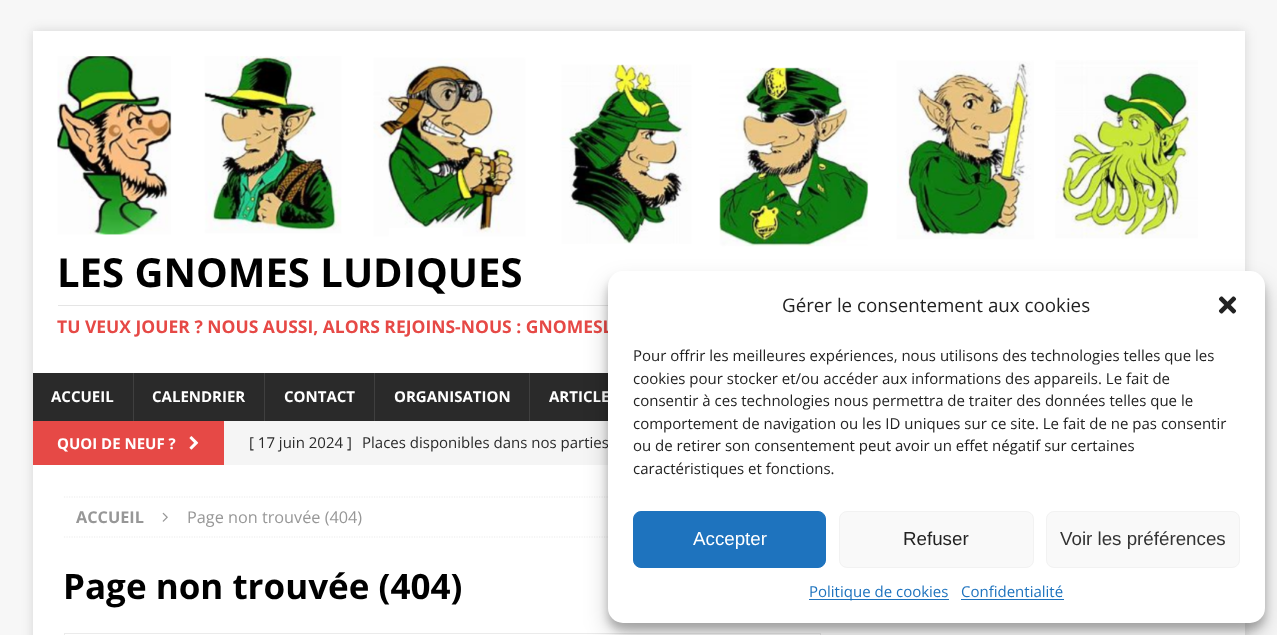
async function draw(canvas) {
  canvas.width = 1277
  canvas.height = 635
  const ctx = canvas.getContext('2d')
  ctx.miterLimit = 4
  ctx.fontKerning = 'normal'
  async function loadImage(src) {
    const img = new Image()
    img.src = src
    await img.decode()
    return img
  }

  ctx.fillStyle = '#f7f7f7'
  ctx.fillRect(0, 0, 1277, 635)
  ctx.fillStyle = '#3232322b'
  ctx.filter = 'blur(6px)'
  ctx.beginPath()
  ctx.rect(33, 31, 1212, 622)
  ctx.fill()
  ctx.filter = 'none'
  ctx.fillStyle = '#fff'
  ctx.fillRect(33, 31, 1212, 342)
  ctx.drawImage(await loadImage('image0.png'), 57, 56, 1141, 191)
  ctx.font = 'bold 40px Open Sans'
  ctx.fillStyle = '#000'
  ctx.fillText('LES GNOMES LUDIQUES', 57, 287)
  ctx.fillStyle = '#e5e5e5'
  ctx.fillRect(58, 305, 550, 1)
  ctx.font = 'bold 17.5px Open Sans'
  ctx.fillStyle = '#e64946'
  ctx.fillText('TU VEUX JOUER ? NOUS AUSSI, ALORS REJOINS-NOUS : GNOMESL', 57, 333)
  ctx.fillStyle = '#2a2a2a'
  ctx.fillRect(33, 373, 575, 48)
  ctx.font = 'bold 15px Open Sans'
  ctx.fillStyle = '#fff'
  ctx.fillText('ACCUEIL', 51, 402)
  ctx.fillStyle = '#3f3f3f'
  ctx.fillRect(133, 373, 1, 48)
  ctx.fillStyle = '#fff'
  ctx.fillText('CALENDRIER', 152, 402)
  ctx.fillStyle = '#3f3f3f'
  ctx.fillRect(264, 373, 1, 48)
  ctx.fillStyle = '#fff'
  ctx.fillText('CONTACT', 284, 402)
  ctx.fillStyle = '#3f3f3f'
  ctx.fillRect(374, 373, 1, 48)
  ctx.fillStyle = '#fff'
  ctx.fillText('ORGANISATION', 394, 402)
  ctx.fillStyle = '#3f3f3f'
  ctx.fillRect(529, 373, 1, 48)
  ctx.fillStyle = '#fff'
  ctx.fillText('ARTICLE', 549, 402)
  ctx.fillStyle = '#f5f5f5'
  ctx.fillRect(224, 421, 384, 44)
  ctx.fillStyle = '#e64946'
  ctx.fillRect(33, 421, 191, 44)
  ctx.fillStyle = '#fff'
  ctx.fillText('QUOI DE NEUF ?', 57, 449)
  ctx.drawImage(await loadImage('image1.png'), 189, 436, 10, 14)
  ctx.font = '15px Open Sans'
  ctx.fillStyle = '#2a2a2a'
  ctx.fillText('[ 17 juin 2024 ]', 249, 448)
  ctx.fillText('Places disponibles dans nos parties', 362, 448)
  ctx.fillStyle = '#fff'
  ctx.fillRect(33, 465, 1212, 170)
  ctx.beginPath()
  ctx.moveTo(64, 497)
  ctx.lineTo(821, 497)
  ctx.strokeStyle = '#ebebeb'
  ctx.lineWidth = 1.2
  ctx.setLineDash([1.25, 1.25])
  ctx.stroke()
  ctx.beginPath()
  ctx.moveTo(64, 537)
  ctx.lineTo(821, 537)
  ctx.stroke()
  ctx.font = 'bold 16.25px Open Sans'
  ctx.fillStyle = '#979797'
  ctx.fillText('ACCUEIL', 76, 523)
  ctx.drawImage(await loadImage('image2.png'), 162, 512, 6, 10)
  ctx.font = '16.25px Open Sans'
  ctx.fillText('Page non trouvée (404)', 187, 523)
  ctx.font = 'bold 35px Open Sans'
  ctx.fillStyle = '#000'
  ctx.fillText('Page non trouvée (404)', 63, 599)
  ctx.lineWidth = 1
  ctx.setLineDash([])
  ctx.strokeRect(64.5, 633.5, 756, 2)
  ctx.fillStyle = '#0000003b'
  ctx.filter = 'blur(4px)'
  ctx.beginPath()
  ctx.roundRect(608, 279, 657, 351, 15)
  ctx.fill()
  ctx.filter = 'none'
  ctx.fillStyle = '#00000030'
  ctx.filter = 'blur(12.5px)'
  ctx.beginPath()
  ctx.roundRect(608, 284, 657, 351, 15)
  ctx.fill()
  ctx.filter = 'none'
  ctx.fillStyle = '#fff'
  ctx.beginPath()
  ctx.roundRect(608, 271, 657, 352, 15)
  ctx.fill()
  ctx.font = '18.75px Open Sans'
  ctx.fillStyle = '#222'
  ctx.fillText('Gérer le consentement aux cookies', 782, 312)
  ctx.drawImage(await loadImage('image3.png'), 1218, 296, 19, 18)
  ctx.font = '15px Open Sans'
  ctx.fillText('Pour offrir les meilleures expériences, nous utilisons des technologies telles que les', 633, 361)
  ctx.fillText('cookies pour stocker et/ou accéder aux informations des appareils. Le fait de', 633, 384)
  ctx.fillText('consentir à ces technologies nous permettra de traiter des données telles que le', 633, 406)
  ctx.fillText('comportement de navigation ou les ID uniques sur ce site. Le fait de ne pas consentir', 633, 429)
  ctx.fillText('ou de retirer son consentement peut avoir un effet négatif sur certaines', 633, 451)
  ctx.fillText('caractéristiques et fonctions.', 633, 474)
  ctx.fillStyle = '#1e73be'
  ctx.beginPath()
  ctx.roundRect(633.5, 511.5, 192, 56, 7.5)
  ctx.fill()
  ctx.strokeStyle = '#1e73be'
  ctx.stroke()
  ctx.font = '18.75px Liberation Sans'
  ctx.fillStyle = '#fff'
  ctx.fillText('Accepter', 693, 545)
  ctx.fillStyle = '#f9f9f9'
  ctx.beginPath()
  ctx.roundRect(839.5, 511.5, 194, 56, 7.5)
  ctx.fill()
  ctx.strokeStyle = '#f2f2f2'
  ctx.stroke()
  ctx.fillStyle = '#222'
  ctx.fillText('Refuser', 903, 545)
  ctx.fillStyle = '#f9f9f9'
  ctx.beginPath()
  ctx.roundRect(1046.5, 511.5, 193, 56, 7.5)
  ctx.fill()
  ctx.stroke()
  ctx.fillStyle = '#333'
  ctx.fillText('Voir les préférences', 1060, 545)
  ctx.fillStyle = '#1e73be'
  ctx.fillRect(809, 599, 140, 1)
  ctx.font = '15px Open Sans'
  ctx.fillText('Politique de cookies', 809, 597)
  ctx.fillText('Confidentialité', 961, 597)
  ctx.fillRect(961, 599, 103, 1)
}

draw(document.querySelector('canvas'))
